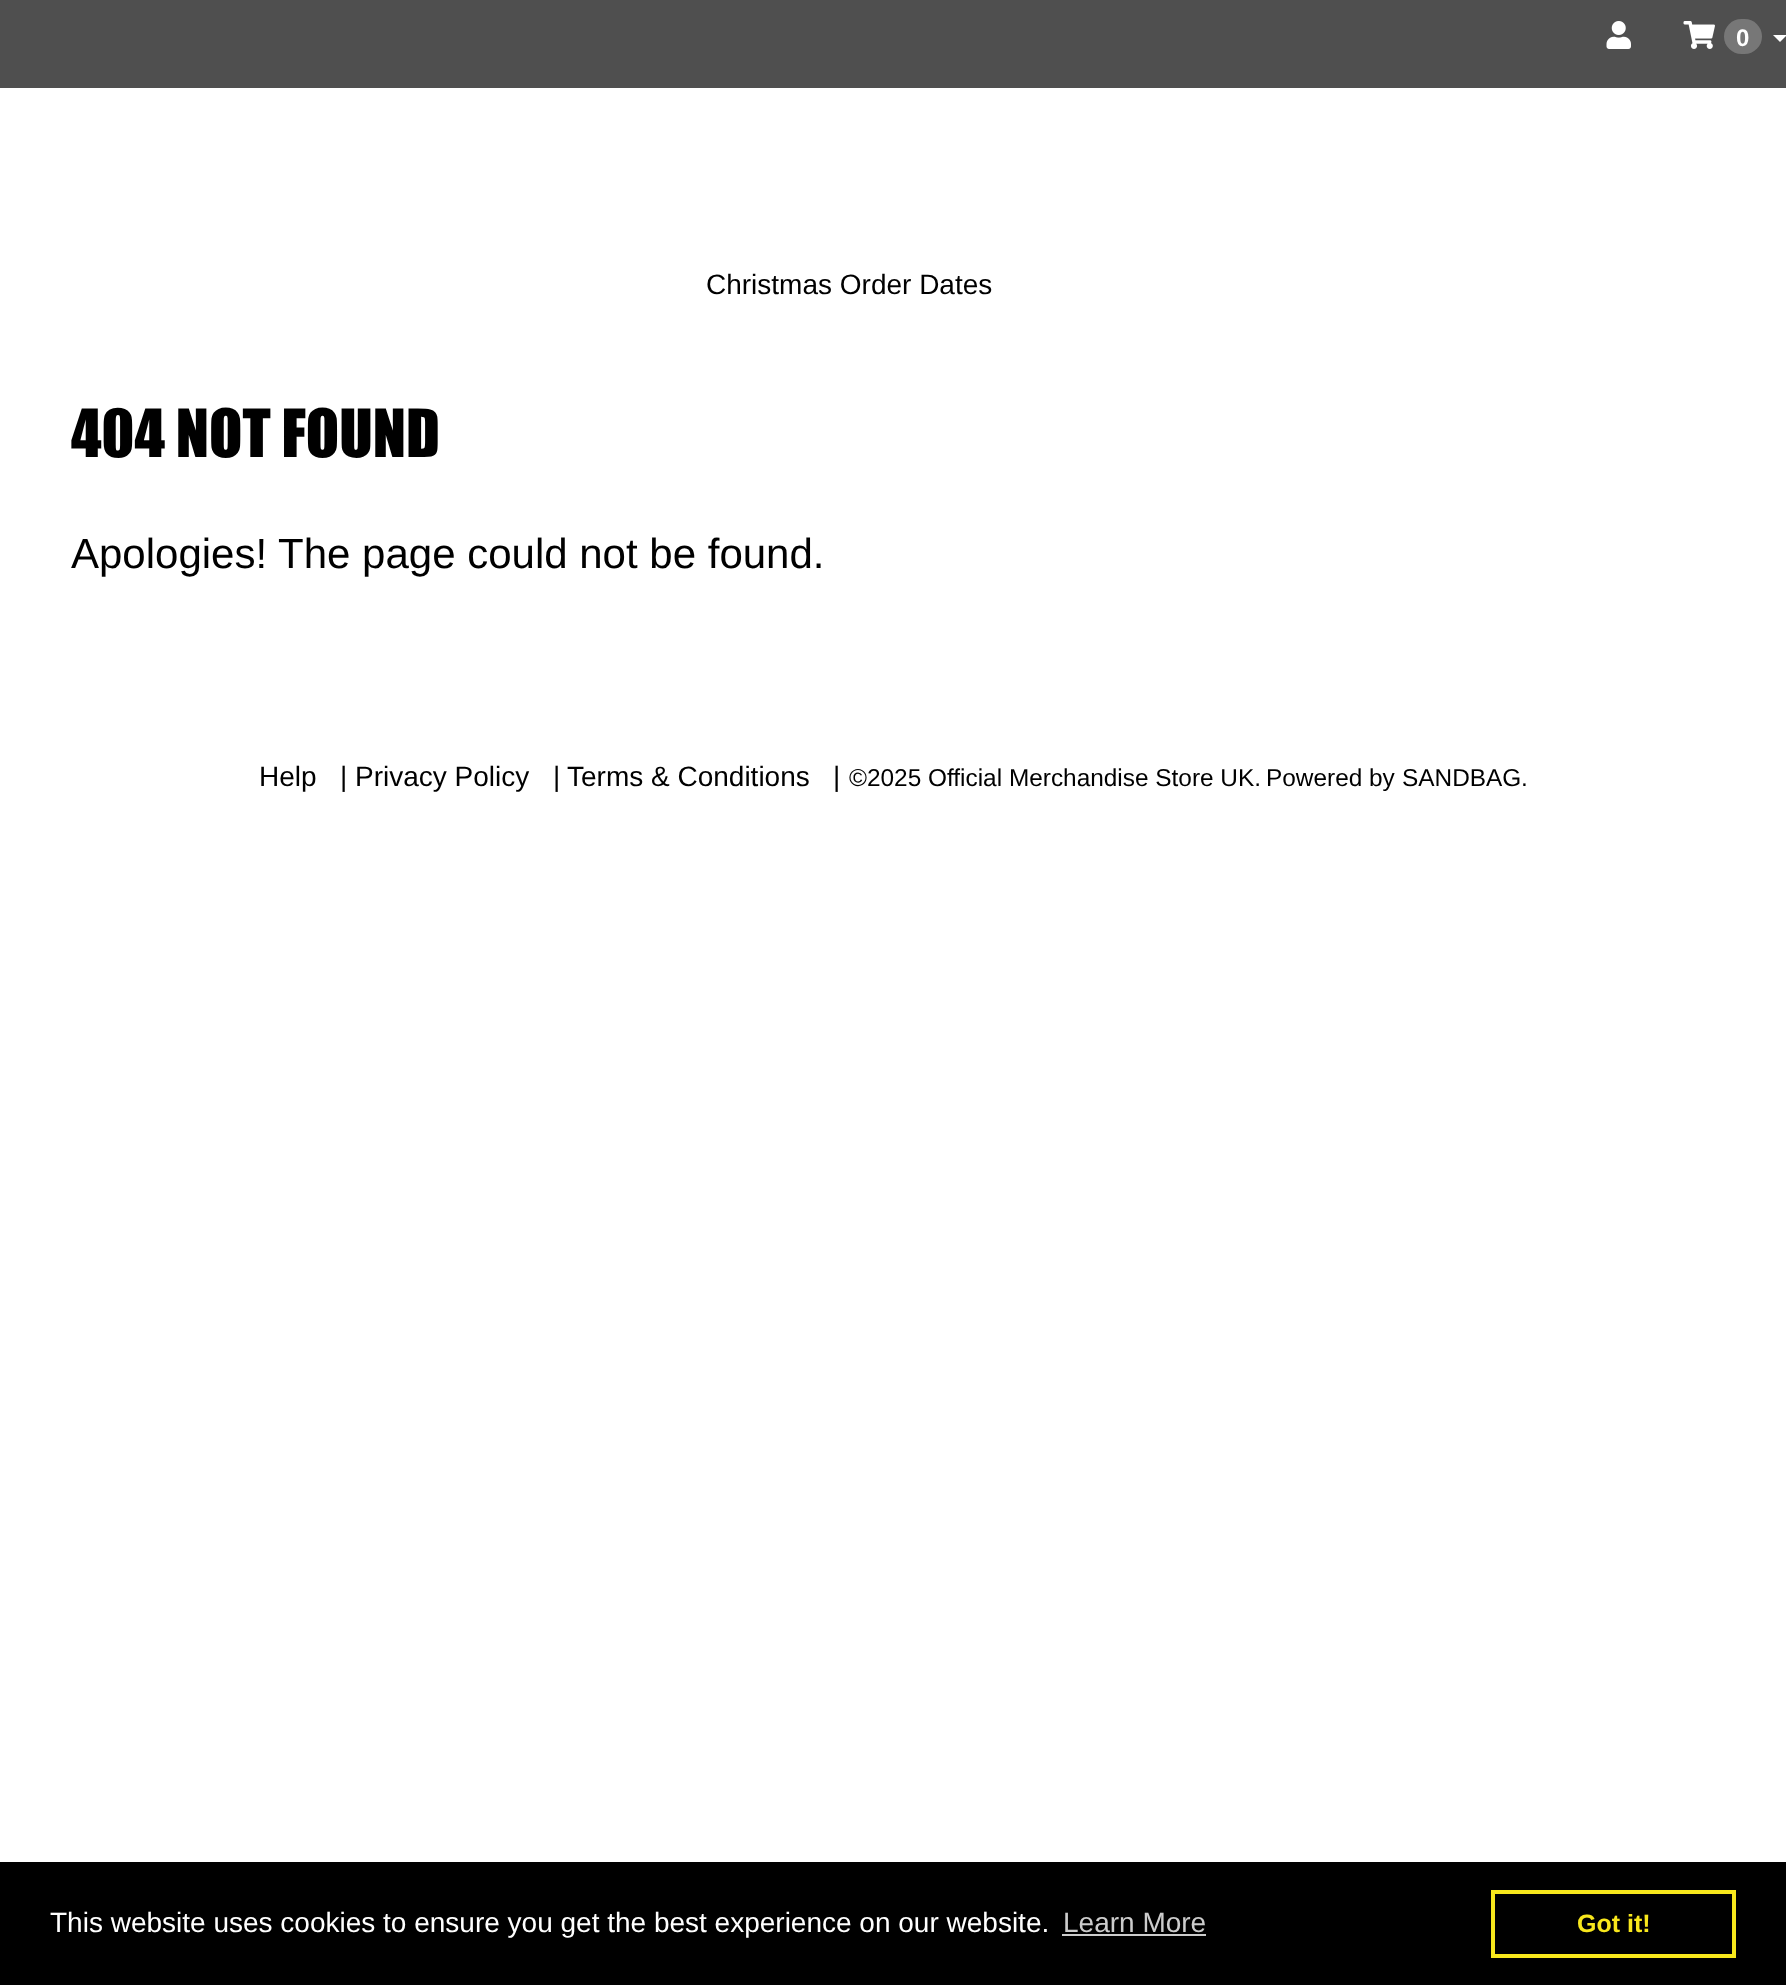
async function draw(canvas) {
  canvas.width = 1786
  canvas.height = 1985
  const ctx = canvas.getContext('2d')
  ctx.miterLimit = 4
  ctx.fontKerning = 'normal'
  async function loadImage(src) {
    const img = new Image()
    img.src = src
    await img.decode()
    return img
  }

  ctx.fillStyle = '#fff'
  ctx.fillRect(0, 0, 1786, 1985)
  ctx.fillStyle = '#4f4f4f'
  ctx.fillRect(0, 0, 1786, 88)
  ctx.drawImage(await loadImage('image0.png'), 1606, 21, 25, 28)
  ctx.drawImage(await loadImage('image1.png'), 1683, 21, 32, 28)
  ctx.fillStyle = '#777'
  ctx.beginPath()
  ctx.roundRect(1724, 19, 38, 35, 17.5)
  ctx.fill()
  ctx.font = 'bold 24px Liberation Sans'
  ctx.fillStyle = '#fff'
  ctx.fillText('0', 1736, 46)
  ctx.beginPath()
  ctx.moveTo(1773, 35)
  ctx.lineTo(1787, 35)
  ctx.lineTo(1780, 42)
  ctx.closePath()
  ctx.fill()
  ctx.font = '28px Liberation Sans'
  ctx.fillStyle = '#000'
  ctx.fillText('Christmas Order Dates', 706, 294)
  ctx.font = '61.25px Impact'
  ctx.fillText('404 NOT FOUND', 71, 457)
  ctx.font = '42px Liberation Sans'
  ctx.fillText('Apologies! The page could not be found.', 71, 568)
  ctx.font = '28px Liberation Sans'
  ctx.fillText('Help', 259, 786)
  ctx.fillText('|', 340, 786)
  ctx.fillText('Privacy Policy', 355, 786)
  ctx.fillText('|', 553, 786)
  ctx.fillText('Terms & Conditions', 567, 786)
  ctx.fillText('|', 833, 786)
  ctx.font = '24.4px Liberation Sans'
  ctx.fillText('©2025 Official Merchandise Store UK.', 849, 786)
  ctx.fillText('Powered by', 1266, 786)
  ctx.fillText('SANDBAG', 1402, 786)
  ctx.fillText('.', 1521, 786)
  ctx.fillRect(0, 1862, 1786, 123)
  ctx.font = '28px Liberation Sans'
  ctx.fillStyle = '#fff'
  ctx.fillText('This website uses cookies to ensure you get the best experience on our website.', 50, 1932)
  ctx.fillStyle = '#ccc'
  ctx.fillText('Learn More', 1063, 1932)
  ctx.fillRect(1062, 1934, 144, 2)
  ctx.strokeStyle = '#f8e71c'
  ctx.lineWidth = 4
  ctx.strokeRect(1493, 1892, 241, 64)
  ctx.font = 'bold 25px Liberation Sans'
  ctx.fillStyle = '#f8e71c'
  ctx.fillText('Got it!', 1577, 1932)
}

draw(document.querySelector('canvas'))
